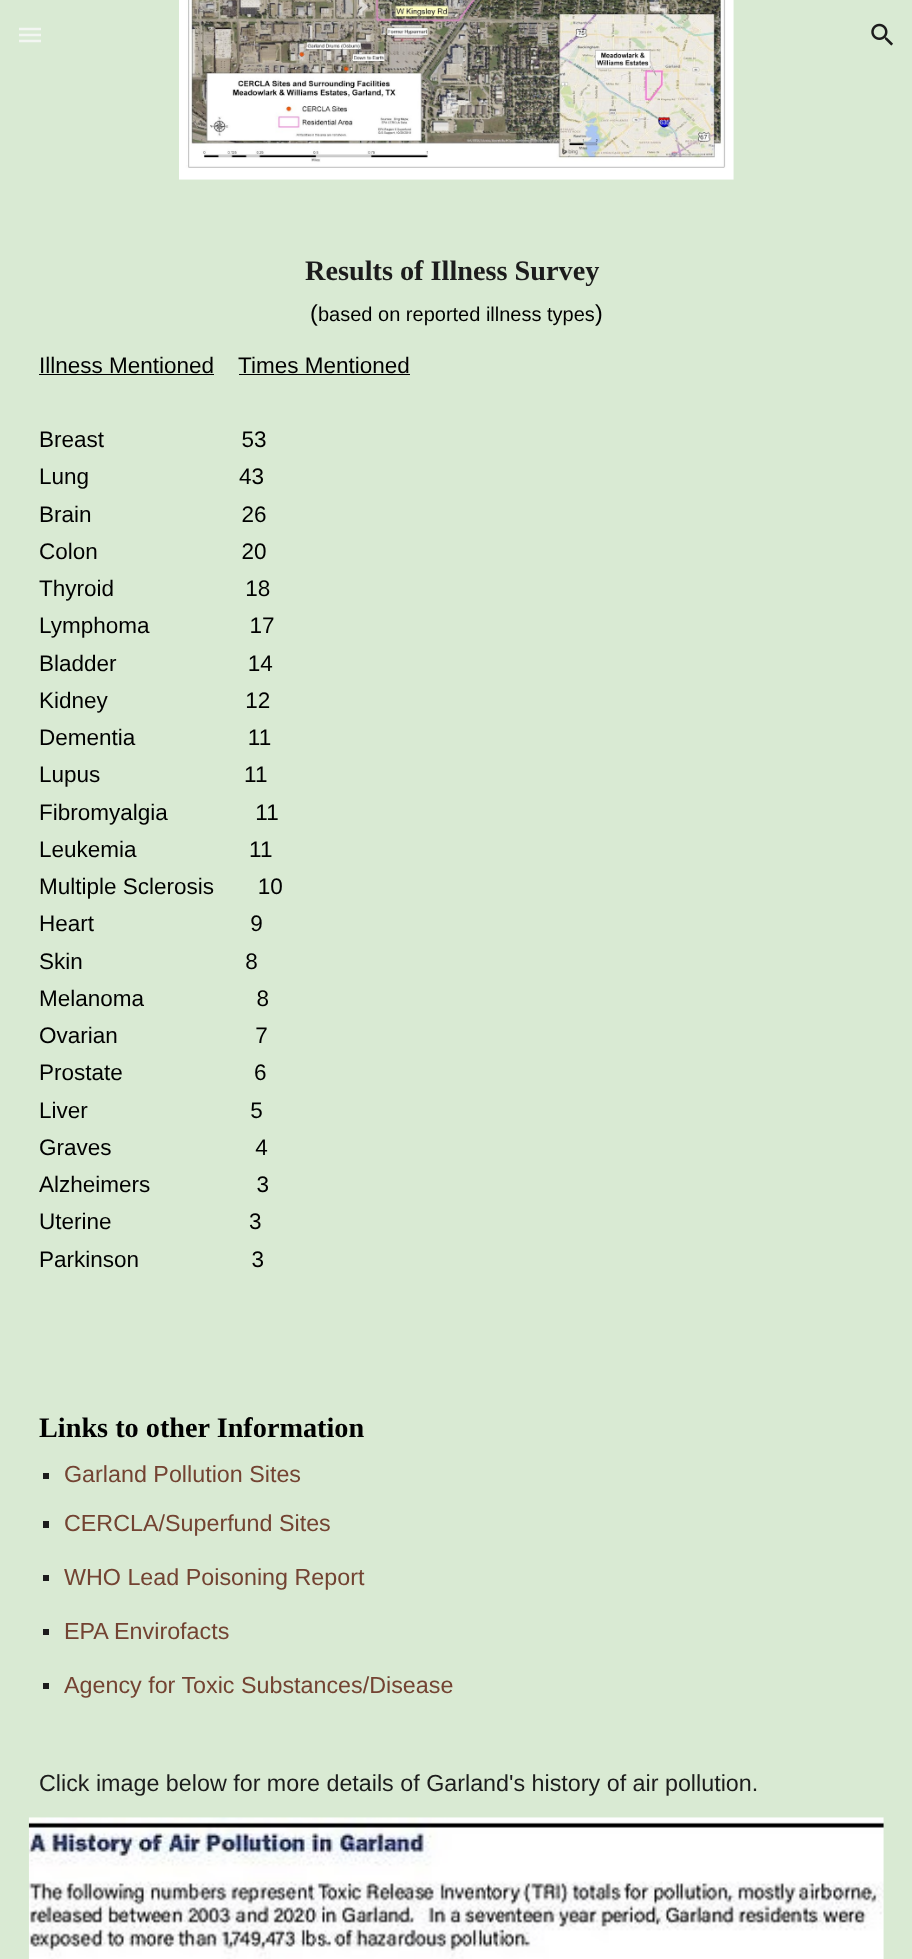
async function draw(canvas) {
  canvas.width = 912
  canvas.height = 1959
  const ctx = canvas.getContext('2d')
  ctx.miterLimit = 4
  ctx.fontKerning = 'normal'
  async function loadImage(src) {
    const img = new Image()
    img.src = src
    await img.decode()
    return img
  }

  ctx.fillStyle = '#d9ead3'
  ctx.fillRect(0, 0, 912, 1959)
  ctx.beginPath()
  ctx.moveTo(19, 29)
  ctx.lineTo(41, 29)
  ctx.moveTo(19, 35)
  ctx.lineTo(41, 35)
  ctx.moveTo(19, 41)
  ctx.lineTo(41, 41)
  ctx.strokeStyle = '#f3f6f2'
  ctx.lineWidth = 2.5
  ctx.stroke()
  ctx.drawImage(await loadImage('image0.png'), 871, 23, 22, 23)
  ctx.drawImage(await loadImage('image1.png'), 179, 0, 555, 180)
  ctx.font = 'bold 28.25px Liberation Serif'
  ctx.fillStyle = '#1c1c1c'
  ctx.fillText('Results of Illness Survey', 305, 280)
  ctx.font = '23.3px Liberation Sans'
  ctx.fillStyle = '#000'
  ctx.fillText('(', 310, 321)
  ctx.font = '20px Liberation Sans'
  ctx.fillText('based on reported illness types', 318, 321)
  ctx.font = '23.3px Liberation Sans'
  ctx.fillText(')', 595, 321)
  ctx.font = '22.5px Liberation Sans'
  ctx.fillText('Illness Mentioned', 39, 373)
  ctx.fillRect(39, 374, 175, 1)
  ctx.fillText('Times Mentioned', 238, 373)
  ctx.fillRect(239, 374, 171, 1)
  ctx.fillText('Breast                      53', 39, 447)
  ctx.fillText('Lung                        43', 39, 484)
  ctx.fillText('Brain                        26', 39, 522)
  ctx.fillText('Colon                       20', 39, 559)
  ctx.fillText('Thyroid                     18', 39, 596)
  ctx.fillText('Lymphoma                17', 39, 633)
  ctx.fillText('Bladder                     14', 39, 671)
  ctx.fillText('Kidney                      12', 39, 708)
  ctx.fillText('Dementia                  11', 39, 745)
  ctx.fillText('Lupus                       11', 39, 782)
  ctx.fillText('Fibromyalgia              11', 39, 820)
  ctx.fillText('Leukemia                  11', 39, 857)
  ctx.fillText('Multiple Sclerosis       10', 39, 894)
  ctx.fillText('Heart                         9', 39, 931)
  ctx.fillText('Skin                          8', 39, 969)
  ctx.fillText('Melanoma                  8', 39, 1006)
  ctx.fillText('Ovarian                      7', 39, 1043)
  ctx.fillText('Prostate                     6', 39, 1080)
  ctx.fillText('Liver                          5', 39, 1118)
  ctx.fillText('Graves                       4', 39, 1155)
  ctx.fillText('Alzheimers                 3', 39, 1192)
  ctx.fillText('Uterine                      3', 39, 1229)
  ctx.fillText('Parkinson                  3', 39, 1267)
  ctx.font = 'bold 28.25px Liberation Serif'
  ctx.fillText('Links to other Information', 39, 1437)
  ctx.fillStyle = '#1c1c1c'
  ctx.fillRect(43, 1473, 6, 6)
  ctx.font = '23.3px Liberation Sans'
  ctx.fillStyle = '#734332'
  ctx.fillText('Garland Pollution Sites', 64, 1482)
  ctx.fillStyle = '#1c1c1c'
  ctx.fillRect(43, 1521, 6, 7)
  ctx.fillStyle = '#734332'
  ctx.fillText('CERCLA/Superfund Sites', 64, 1531)
  ctx.fillStyle = '#1c1c1c'
  ctx.fillRect(43, 1575, 6, 6)
  ctx.fillStyle = '#734332'
  ctx.fillText('WHO Lead Poisoning Report', 64, 1585)
  ctx.fillStyle = '#1c1c1c'
  ctx.fillRect(43, 1629, 6, 6)
  ctx.fillStyle = '#734332'
  ctx.fillText('EPA Envirofacts', 64, 1639)
  ctx.fillStyle = '#1c1c1c'
  ctx.fillRect(43, 1683, 6, 6)
  ctx.fillStyle = '#734332'
  ctx.fillText('Agency for Toxic Substances/Disease', 64, 1693)
  ctx.fillStyle = '#1c1c1c'
  ctx.fillText('Click image below for more details of Garland\'s history of air pollution.', 39, 1791)
  ctx.drawImage(await loadImage('image2.png'), 28, 1817, 856, 142)
}

draw(document.querySelector('canvas'))
